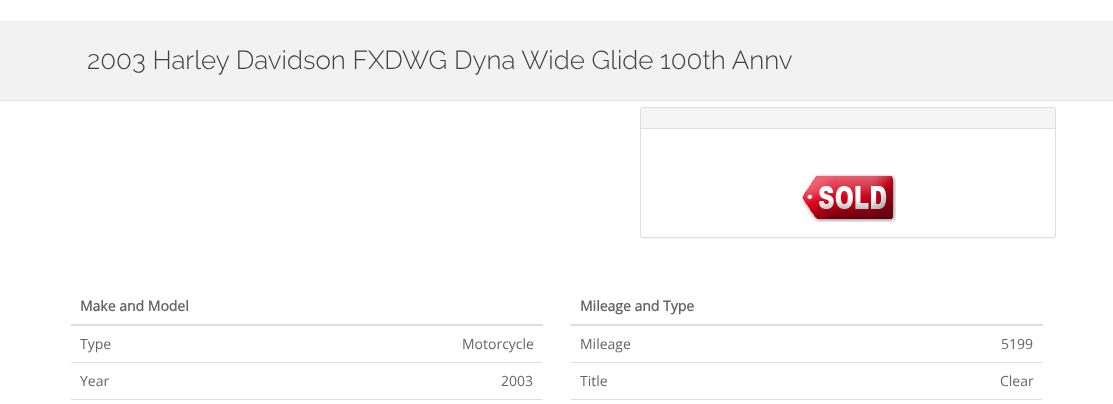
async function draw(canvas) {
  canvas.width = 1113
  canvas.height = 404
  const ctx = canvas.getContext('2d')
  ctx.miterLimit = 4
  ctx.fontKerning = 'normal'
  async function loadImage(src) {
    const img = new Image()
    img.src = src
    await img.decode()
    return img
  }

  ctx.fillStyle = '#fff'
  ctx.fillRect(0, 0, 1113, 404)
  ctx.fillStyle = '#f2f2f2'
  ctx.fillRect(0, 21, 1113, 79)
  ctx.fillStyle = '#e6e6e6'
  ctx.fillRect(0, 100, 1113, 1)
  ctx.font = '300 26px Raleway'
  ctx.fillStyle = '#414141'
  ctx.fillText('2003 Harley Davidson FXDWG Dyna Wide Glide 100th Annv', 87, 69)
  ctx.fillStyle = '#0000000d'
  ctx.filter = 'blur(0.5px)'
  ctx.beginPath()
  ctx.roundRect(640, 108, 416, 131, 3)
  ctx.fill()
  ctx.filter = 'none'
  ctx.fillStyle = '#fff'
  ctx.beginPath()
  ctx.roundRect(640.5, 107.5, 415, 130, 2.5)
  ctx.fill()
  ctx.strokeStyle = '#ddd'
  ctx.stroke()
  ctx.fillStyle = '#f5f5f5'
  ctx.beginPath()
  ctx.roundRect(641, 108, 414, 21, [3, 3, 0, 0])
  ctx.fill()
  ctx.fillStyle = '#ddd'
  ctx.fillRect(641, 128, 414, 1)
  ctx.drawImage(await loadImage('image0.png'), 801, 174, 95, 48)
  ctx.font = 'bold 14px Open Sans'
  ctx.fillStyle = '#666'
  ctx.fillText('Make and Model', 80, 311)
  ctx.fillStyle = '#ddd'
  ctx.fillRect(71, 324, 472, 2)
  ctx.font = '14px Open Sans'
  ctx.fillStyle = '#666'
  ctx.fillText('Type', 80, 349)
  ctx.fillText('Motorcycle', 462, 349)
  ctx.fillText('Year', 80, 386)
  ctx.fillStyle = '#ddd'
  ctx.fillRect(71, 362, 471, 1)
  ctx.fillStyle = '#666'
  ctx.fillText('2003', 501, 386)
  ctx.fillStyle = '#ddd'
  ctx.fillRect(71, 399, 471, 1)
  ctx.font = 'bold 14px Open Sans'
  ctx.fillStyle = '#666'
  ctx.fillText('Mileage and Type', 580, 311)
  ctx.fillStyle = '#ddd'
  ctx.fillRect(571, 324, 472, 2)
  ctx.font = '14px Open Sans'
  ctx.fillStyle = '#666'
  ctx.fillText('Mileage', 580, 349)
  ctx.fillText('5199', 1001, 349)
  ctx.fillText('Title', 580, 386)
  ctx.fillStyle = '#ddd'
  ctx.fillRect(571, 362, 471, 1)
  ctx.fillStyle = '#666'
  ctx.fillText('Clear', 1000, 386)
  ctx.fillStyle = '#ddd'
  ctx.fillRect(571, 399, 471, 1)
}

draw(document.querySelector('canvas'))
